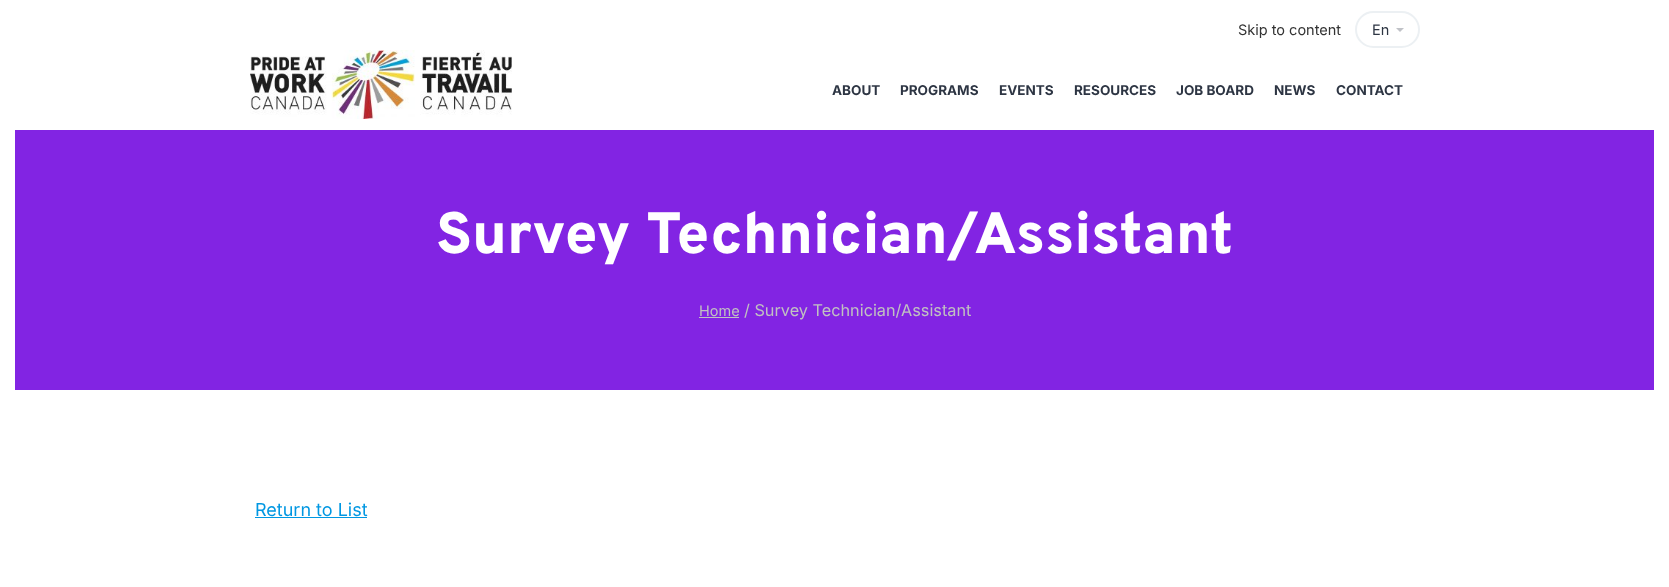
async function draw(canvas) {
  canvas.width = 1669
  canvas.height = 587
  const ctx = canvas.getContext('2d')
  ctx.miterLimit = 4
  ctx.fontKerning = 'normal'
  async function loadImage(src) {
    const img = new Image()
    img.src = src
    await img.decode()
    return img
  }

  ctx.fillStyle = '#fff'
  ctx.fillRect(0, 0, 1669, 587)
  ctx.font = '14.5px Inter'
  ctx.fillStyle = '#333'
  ctx.fillText('Skip to content', 1238, 35)
  ctx.beginPath()
  ctx.roundRect(1356, 12, 63, 35, 17.5)
  ctx.strokeStyle = '#ecf0f3'
  ctx.lineWidth = 2
  ctx.stroke()
  ctx.fillStyle = '#2d3543'
  ctx.fillText('En', 1372, 35)
  ctx.fillStyle = '#c0c2c7'
  ctx.beginPath()
  ctx.moveTo(1396, 28)
  ctx.lineTo(1404, 28)
  ctx.lineTo(1400, 32)
  ctx.closePath()
  ctx.fill()
  ctx.drawImage(await loadImage('image0.png'), 250, 50, 262, 69)
  ctx.font = 'bold 13.5px Inter'
  ctx.fillStyle = '#2d3543'
  ctx.fillText('ABOUT', 832, 95)
  ctx.fillText('PROGRAMS', 900, 95)
  ctx.fillText('EVENTS', 999, 95)
  ctx.fillText('RESOURCES', 1074, 95)
  ctx.fillText('JOB BOARD', 1176, 95)
  ctx.fillText('NEWS', 1274, 95)
  ctx.fillText('CONTACT', 1336, 95)
  ctx.fillStyle = '#8224e3'
  ctx.fillRect(15, 130, 1639, 260)
  ctx.font = '800 58.25px Overpass'
  ctx.fillStyle = '#fff'
  ctx.fillText('Survey Technician/Assistant', 436, 253)
  ctx.font = '14.5px Inter'
  ctx.fillStyle = '#c1c1c1'
  ctx.fillText('Home', 699, 316)
  ctx.fillRect(699, 317, 40, 1)
  ctx.font = '16.25px Inter'
  ctx.fillText('/ Survey Technician/Assistant', 744, 316)
  ctx.font = '18px Inter'
  ctx.fillStyle = '#0097e2'
  ctx.fillText('Return to List', 255, 516)
  ctx.fillRect(255, 517, 112, 1)
}

draw(document.querySelector('canvas'))
